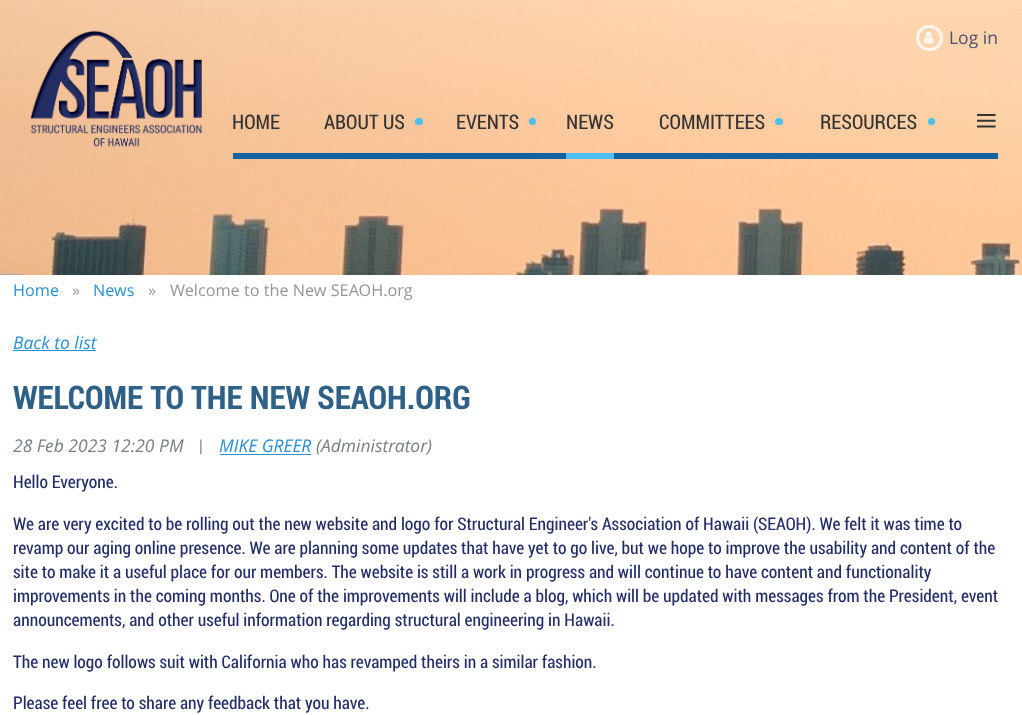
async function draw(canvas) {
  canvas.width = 1022
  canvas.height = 715
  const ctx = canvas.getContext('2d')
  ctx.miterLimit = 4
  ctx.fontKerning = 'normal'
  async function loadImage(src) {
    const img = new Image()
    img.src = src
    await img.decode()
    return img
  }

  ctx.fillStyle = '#fff'
  ctx.fillRect(0, 0, 1022, 715)
  ctx.drawImage(await loadImage('image0.png'), 0, 0, 1022, 275)
  ctx.drawImage(await loadImage('image1.png'), 30, 30, 172, 117)
  ctx.beginPath()
  ctx.roundRect(917.5, 26.5, 24, 23, 11.5)
  ctx.strokeStyle = '#fff6ee'
  ctx.lineWidth = 3
  ctx.stroke()
  ctx.drawImage(await loadImage('image2.png'), 923, 31, 11, 13)
  ctx.font = '17.5px Open Sans'
  ctx.fillStyle = '#4e4e73'
  ctx.fillText('Log in', 949, 44)
  ctx.fillStyle = '#14629e'
  ctx.fillRect(233, 153, 765, 6)
  ctx.font = '20px Roboto Condensed'
  ctx.fillStyle = '#333'
  ctx.fillText('HOME', 232, 129)
  ctx.fillText('ABOUT US', 324, 129)
  ctx.fillStyle = '#4dbff0'
  ctx.beginPath()
  ctx.roundRect(415, 118, 8, 7, 3.5)
  ctx.fill()
  ctx.fillStyle = '#333'
  ctx.fillText('EVENTS', 456, 129)
  ctx.fillStyle = '#4dbff0'
  ctx.beginPath()
  ctx.arc(532.5, 121.5, 3.5, 0, 2 * Math.PI)
  ctx.fill()
  ctx.fillStyle = '#333'
  ctx.fillText('NEWS', 566, 129)
  ctx.fillStyle = '#4dbff0'
  ctx.fillRect(566, 153, 48, 6)
  ctx.fillStyle = '#333'
  ctx.fillText('COMMITTEES', 659, 129)
  ctx.fillStyle = '#4dbff0'
  ctx.beginPath()
  ctx.roundRect(775, 118, 8, 7, 3.5)
  ctx.fill()
  ctx.fillStyle = '#333'
  ctx.fillText('RESOURCES', 820, 129)
  ctx.fillStyle = '#4dbff0'
  ctx.beginPath()
  ctx.arc(931.5, 121.5, 3.5, 0, 2 * Math.PI)
  ctx.fill()
  ctx.font = '40px Liberation Serif'
  ctx.fillStyle = '#333'
  ctx.fillText('≡', 975, 134)
  ctx.font = '16.25px Open Sans'
  ctx.fillStyle = '#2b90d1'
  ctx.fillText('Home', 13, 296)
  ctx.fillStyle = '#959595'
  ctx.fillText('»', 72, 296)
  ctx.fillStyle = '#2b90d1'
  ctx.fillText('News', 93, 296)
  ctx.fillStyle = '#959595'
  ctx.fillText('»', 148, 296)
  ctx.fillText('Welcome to the New SEAOH.org', 170, 296)
  ctx.font = 'italic 17.5px Open Sans'
  ctx.fillStyle = '#2b90d1'
  ctx.fillText('Back to list', 13, 349)
  ctx.fillRect(13, 350, 83, 1)
  ctx.font = 'bold 32.5px Roboto Condensed'
  ctx.fillStyle = '#2e6185'
  ctx.fillText('WELCOME TO THE NEW SEAOH.ORG', 13, 409)
  ctx.font = 'italic 17.5px Open Sans'
  ctx.fillStyle = '#798084'
  ctx.fillText('28 Feb 2023 12:20 PM', 13, 452)
  ctx.font = '17.5px Roboto Condensed'
  ctx.fillText('|', 199, 452)
  ctx.font = 'italic 17.5px Open Sans'
  ctx.fillStyle = '#2b90d1'
  ctx.fillText('MIKE GREER', 219, 452)
  ctx.fillRect(220, 454, 91, 1)
  ctx.fillStyle = '#798084'
  ctx.fillText('(Administrator)', 316, 452)
  ctx.font = '17.5px Roboto Condensed'
  ctx.fillStyle = '#222d65'
  ctx.fillText('Hello Everyone.', 13, 488)
  ctx.fillText('We are very excited to be rolling out the new website and logo for Structural Engineer\'s Association of Hawaii (SEAOH). We felt it was time to', 13, 530)
  ctx.fillText('revamp our aging online presence. We are planning some updates that have yet to go live, but we hope to improve the usability and content of the', 13, 554)
  ctx.fillText('site to make it a useful place for our members. The website is still a work in progress and will continue to have content and functionality', 13, 578)
  ctx.fillText('improvements in the coming months. One of the improvements will include a blog, which will be updated with messages from the President, event', 13, 602)
  ctx.fillText('announcements, and other useful information regarding structural engineering in Hawaii.', 13, 626)
  ctx.fillText('The new logo follows suit with California who has revamped theirs in a similar fashion.', 13, 668)
  ctx.fillText('Please feel free to share any feedback that you have.', 13, 709)
}

draw(document.querySelector('canvas'))
